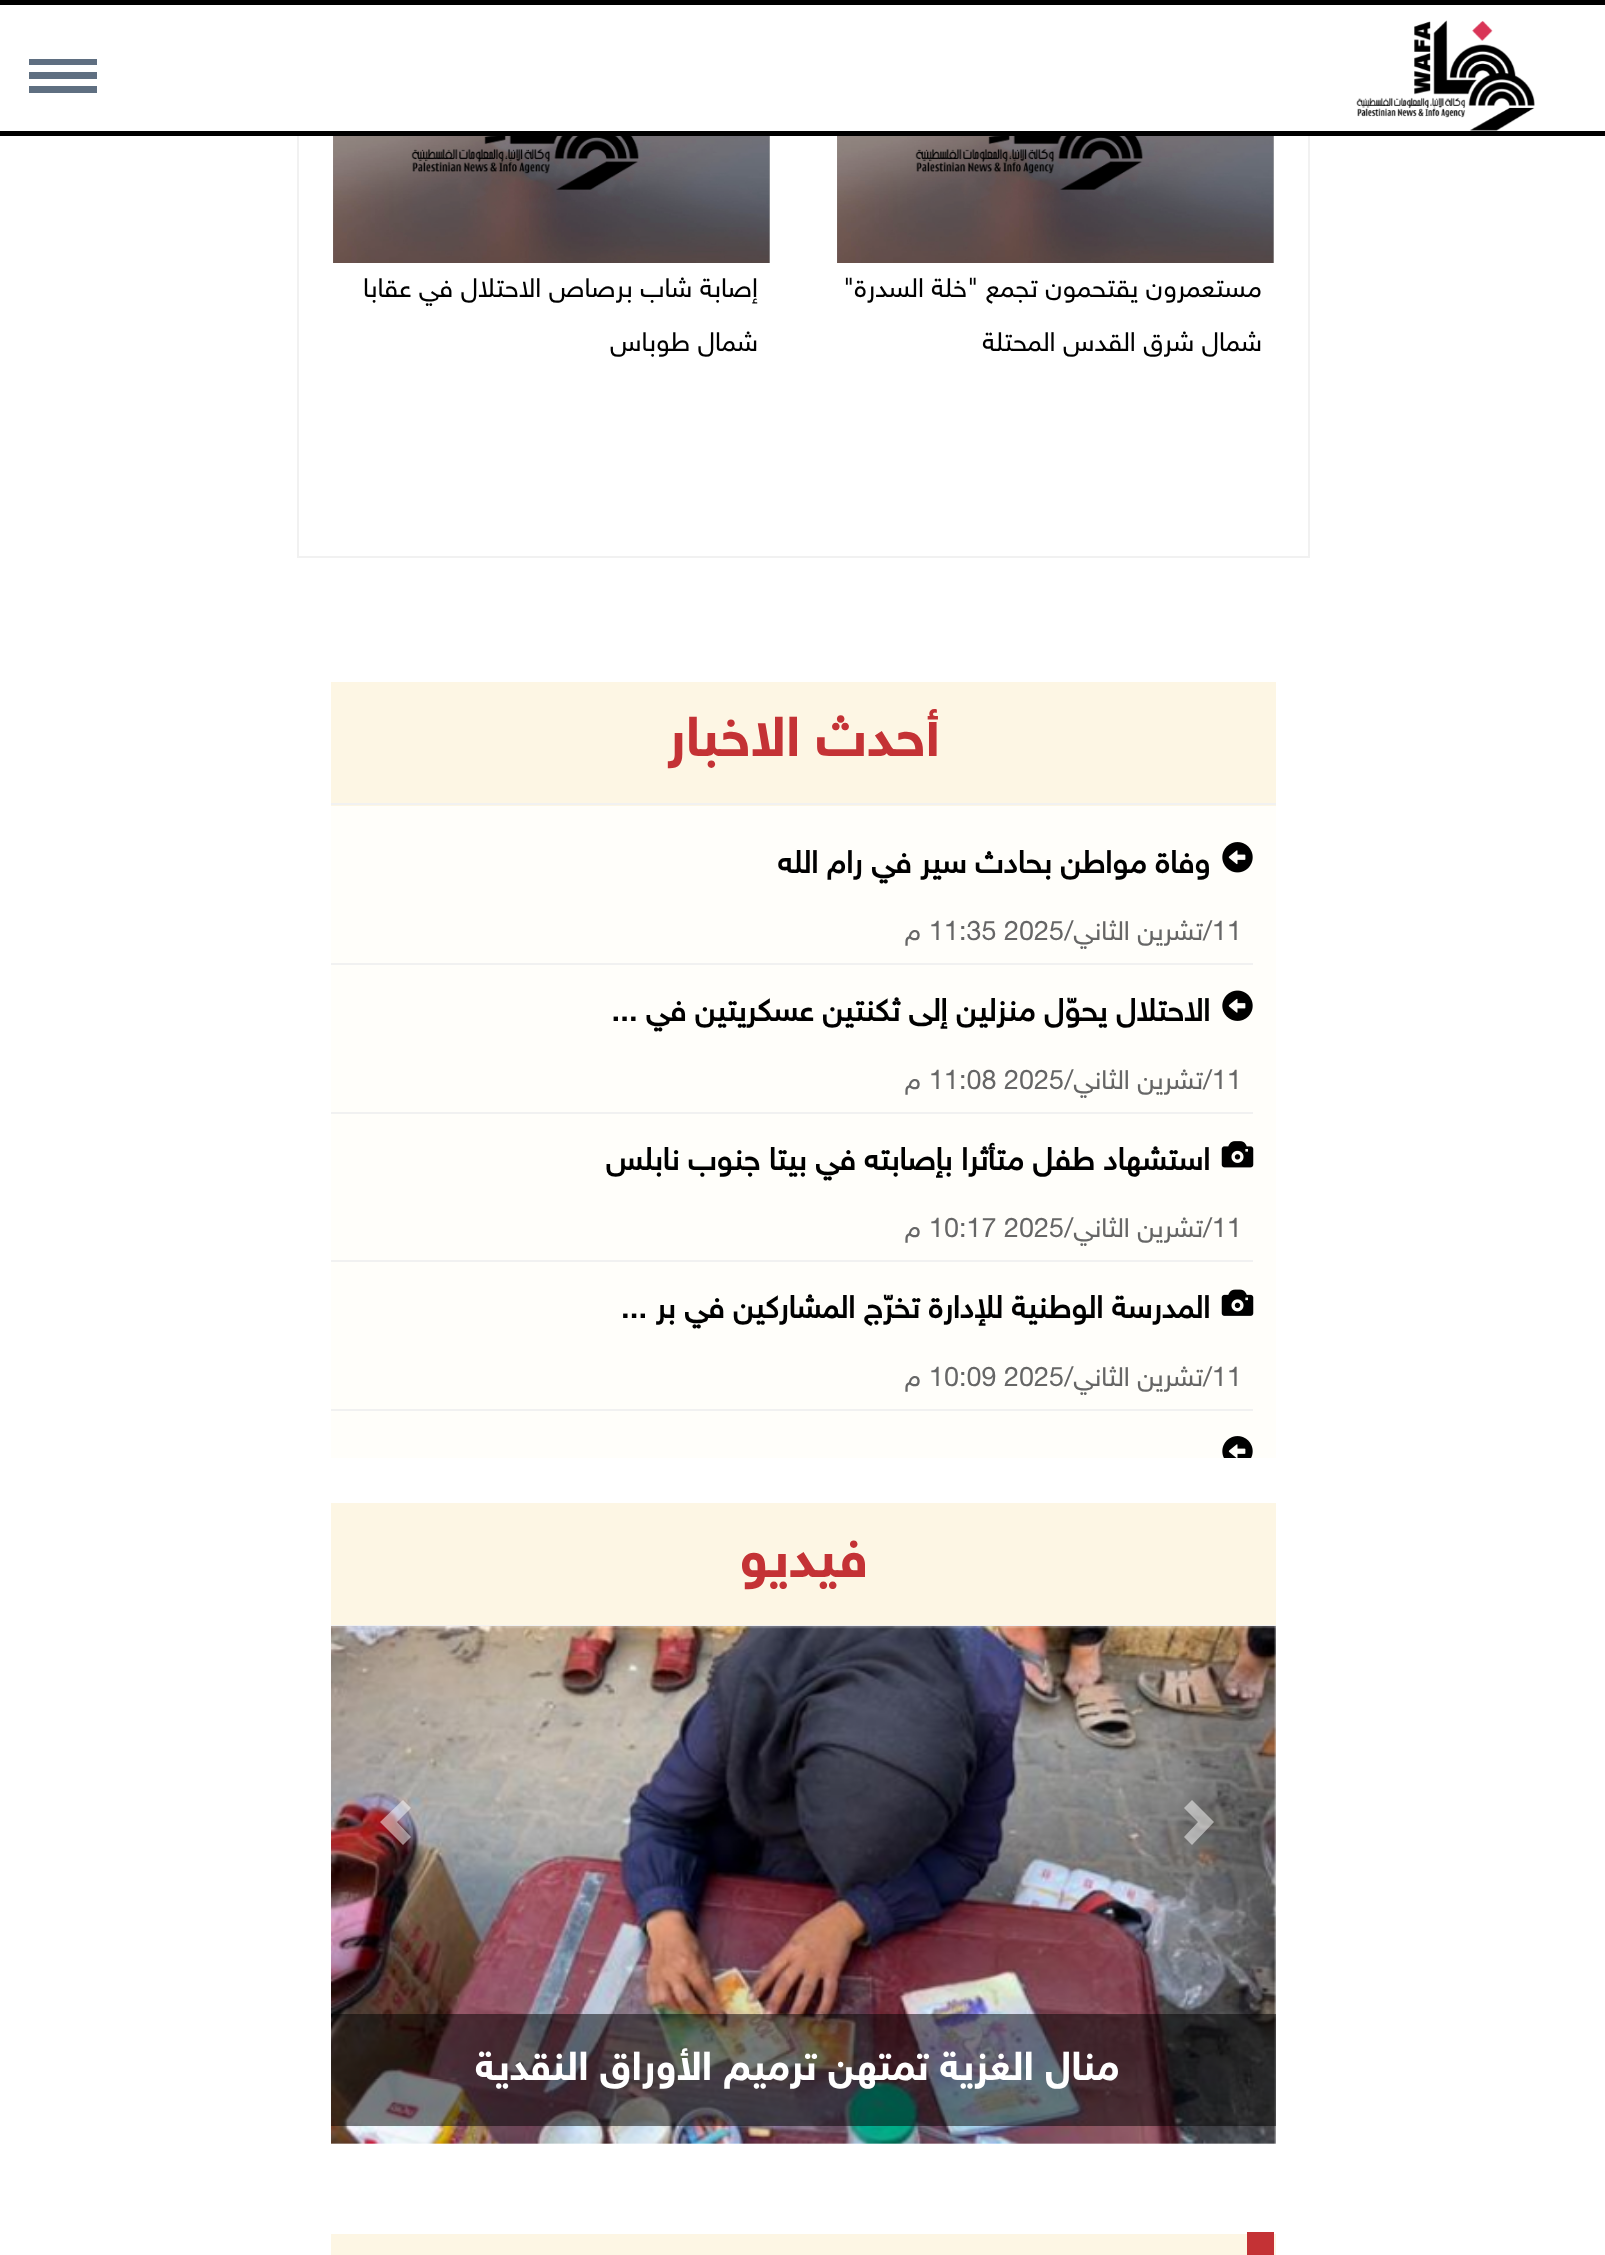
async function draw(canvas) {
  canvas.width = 1605
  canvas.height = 2255
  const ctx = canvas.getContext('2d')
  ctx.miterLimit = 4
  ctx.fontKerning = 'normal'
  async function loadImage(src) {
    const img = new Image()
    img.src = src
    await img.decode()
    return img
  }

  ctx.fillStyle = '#fff'
  ctx.fillRect(0, 0, 1605, 2255)
  ctx.fillStyle = '#b3b3b3'
  ctx.fillRect(769, 136, 1, 127)
  ctx.fillRect(1273, 136, 1, 127)
  ctx.strokeStyle = '#f1f1f1'
  ctx.lineWidth = 2
  ctx.strokeRect(298, -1, 1011, 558)
  ctx.fillStyle = '#fff'
  ctx.fillRect(297, 5, 1013, 126)
  ctx.fillStyle = '#000'
  ctx.fillRect(0, 0, 1605, 5)
  ctx.fillRect(0, 131, 1605, 5)
  ctx.drawImage(await loadImage('image0.png'), 1356, 20, 179, 111)
  ctx.fillStyle = '#5f6f81'
  ctx.fillRect(29, 59, 68, 6)
  ctx.fillRect(29, 72, 68, 7)
  ctx.fillRect(29, 86, 68, 7)
  ctx.drawImage(await loadImage('image1.png'), 837, 136, 437, 127)
  ctx.direction = 'rtl'
  ctx.font = '27px "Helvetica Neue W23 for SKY"'
  ctx.fillStyle = '#000'
  ctx.fillText('مستعمرون يقتحمون تجمع "خلة السدرة"', 1262, 297)
  ctx.fillText('شمال شرق القدس المحتلة', 1262, 351)
  ctx.drawImage(await loadImage('image1.png'), 333, 136, 437, 127)
  ctx.fillText('إصابة شاب برصاص الاحتلال في عقابا', 758, 297)
  ctx.fillText('شمال طوباس', 758, 351)
  ctx.fillStyle = '#fdf6e4'
  ctx.fillRect(331, 682, 945, 124)
  ctx.fillStyle = '#f1f1f1'
  ctx.fillRect(331, 803, 945, 2)
  ctx.font = 'bold 56.25px "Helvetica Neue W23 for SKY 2"'
  ctx.fillStyle = '#c43235'
  ctx.fillText('أحدث الاخبار', 940, 756)
  ctx.fillStyle = '#fffefa'
  ctx.fillRect(331, 806, 945, 652)
  ctx.fillStyle = '#f1f1f1'
  ctx.fillRect(331, 963, 922, 2)
  ctx.drawImage(await loadImage('image2.png'), 1222, 842, 31, 31)
  ctx.font = 'bold 31.5px "Helvetica Neue W23 for SKY"'
  ctx.fillStyle = '#000'
  ctx.fillText('وفاة مواطن بحادث سير في رام الله', 1210, 873)
  ctx.direction = 'ltr'
  ctx.font = '27px "Helvetica Neue W23 for SKY"'
  ctx.fillStyle = '#666'
  ctx.fillText('11', 1212, 940)
  ctx.direction = 'rtl'
  ctx.fillText('/تشرين الثاني/', 1212, 940)
  ctx.direction = 'ltr'
  ctx.fillText('11:35 2025', 929, 940)
  ctx.direction = 'rtl'
  ctx.fillText('م', 921, 940)
  ctx.fillStyle = '#f1f1f1'
  ctx.fillRect(331, 1112, 922, 2)
  ctx.drawImage(await loadImage('image3.png'), 1222, 990, 31, 31)
  ctx.font = 'bold 31.5px "Helvetica Neue W23 for SKY"'
  ctx.fillStyle = '#000'
  ctx.fillText('الاحتلال يحوّل منزلين إلى ثكنتين عسكريتين في', 1210, 1021)
  ctx.direction = 'ltr'
  ctx.fillText('...', 611, 1021)
  ctx.font = '27px "Helvetica Neue W23 for SKY"'
  ctx.fillStyle = '#666'
  ctx.fillText('11', 1212, 1089)
  ctx.direction = 'rtl'
  ctx.fillText('/تشرين الثاني/', 1212, 1089)
  ctx.direction = 'ltr'
  ctx.fillText('11:08 2025', 929, 1089)
  ctx.direction = 'rtl'
  ctx.fillText('م', 921, 1089)
  ctx.fillStyle = '#f1f1f1'
  ctx.fillRect(331, 1260, 922, 2)
  ctx.drawImage(await loadImage('image4.png'), 1221, 1141, 33, 27)
  ctx.font = 'bold 31.5px "Helvetica Neue W23 for SKY"'
  ctx.fillStyle = '#000'
  ctx.fillText('استشهاد طفل متأثرا بإصابته في بيتا جنوب نابلس', 1210, 1170)
  ctx.direction = 'ltr'
  ctx.font = '27px "Helvetica Neue W23 for SKY"'
  ctx.fillStyle = '#666'
  ctx.fillText('11', 1212, 1237)
  ctx.direction = 'rtl'
  ctx.fillText('/تشرين الثاني/', 1212, 1237)
  ctx.direction = 'ltr'
  ctx.fillText('10:17 2025', 929, 1237)
  ctx.direction = 'rtl'
  ctx.fillText('م', 921, 1237)
  ctx.fillStyle = '#f1f1f1'
  ctx.fillRect(331, 1409, 922, 2)
  ctx.drawImage(await loadImage('image5.png'), 1221, 1289, 33, 27)
  ctx.font = 'bold 31.5px "Helvetica Neue W23 for SKY"'
  ctx.fillStyle = '#000'
  ctx.fillText('المدرسة الوطنية للإدارة تخرّج المشاركين في بر ...', 1210, 1318)
  ctx.direction = 'ltr'
  ctx.font = '27px "Helvetica Neue W23 for SKY"'
  ctx.fillStyle = '#666'
  ctx.fillText('11', 1212, 1386)
  ctx.direction = 'rtl'
  ctx.fillText('/تشرين الثاني/', 1212, 1386)
  ctx.direction = 'ltr'
  ctx.fillText('10:09 2025', 929, 1386)
  ctx.direction = 'rtl'
  ctx.fillText('م', 921, 1386)
  ctx.drawImage(await loadImage('image6.png'), 1222, 1436, 31, 22)
  ctx.fillStyle = '#fdf6e4'
  ctx.fillRect(331, 1503, 945, 122)
  ctx.fillStyle = '#f1f1f1'
  ctx.fillRect(331, 1625, 945, 2)
  ctx.font = 'bold 56.25px "Helvetica Neue W23 for SKY 2"'
  ctx.fillStyle = '#c43235'
  ctx.fillText('فيديو', 868, 1577)
  ctx.drawImage(await loadImage('image7.png'), 331, 1626, 945, 518)
  ctx.fillStyle = '#ffffff80'
  ctx.beginPath()
  ctx.moveTo(1192, 1800)
  ctx.lineTo(1184, 1808)
  ctx.lineTo(1198, 1822)
  ctx.lineTo(1184, 1837)
  ctx.lineTo(1192, 1845)
  ctx.lineTo(1214, 1822)
  ctx.closePath()
  ctx.fill()
  ctx.beginPath()
  ctx.moveTo(403, 1800)
  ctx.lineTo(380, 1822)
  ctx.lineTo(403, 1845)
  ctx.lineTo(411, 1837)
  ctx.lineTo(397, 1822)
  ctx.lineTo(411, 1808)
  ctx.closePath()
  ctx.fill()
  ctx.fillStyle = '#00000080'
  ctx.fillRect(331, 2014, 945, 112)
  ctx.font = 'bold 40.5px "Helvetica Neue W23 for SKY 2"'
  ctx.fillStyle = '#fff'
  ctx.fillText('منال الغزية تمتهن ترميم الأوراق النقدية', 1119, 2080)
  ctx.fillStyle = '#fdf6e4'
  ctx.fillRect(331, 2234, 945, 21)
  ctx.fillStyle = '#c43235'
  ctx.fillRect(1247, 2232, 27, 23)
}

draw(document.querySelector('canvas'))
